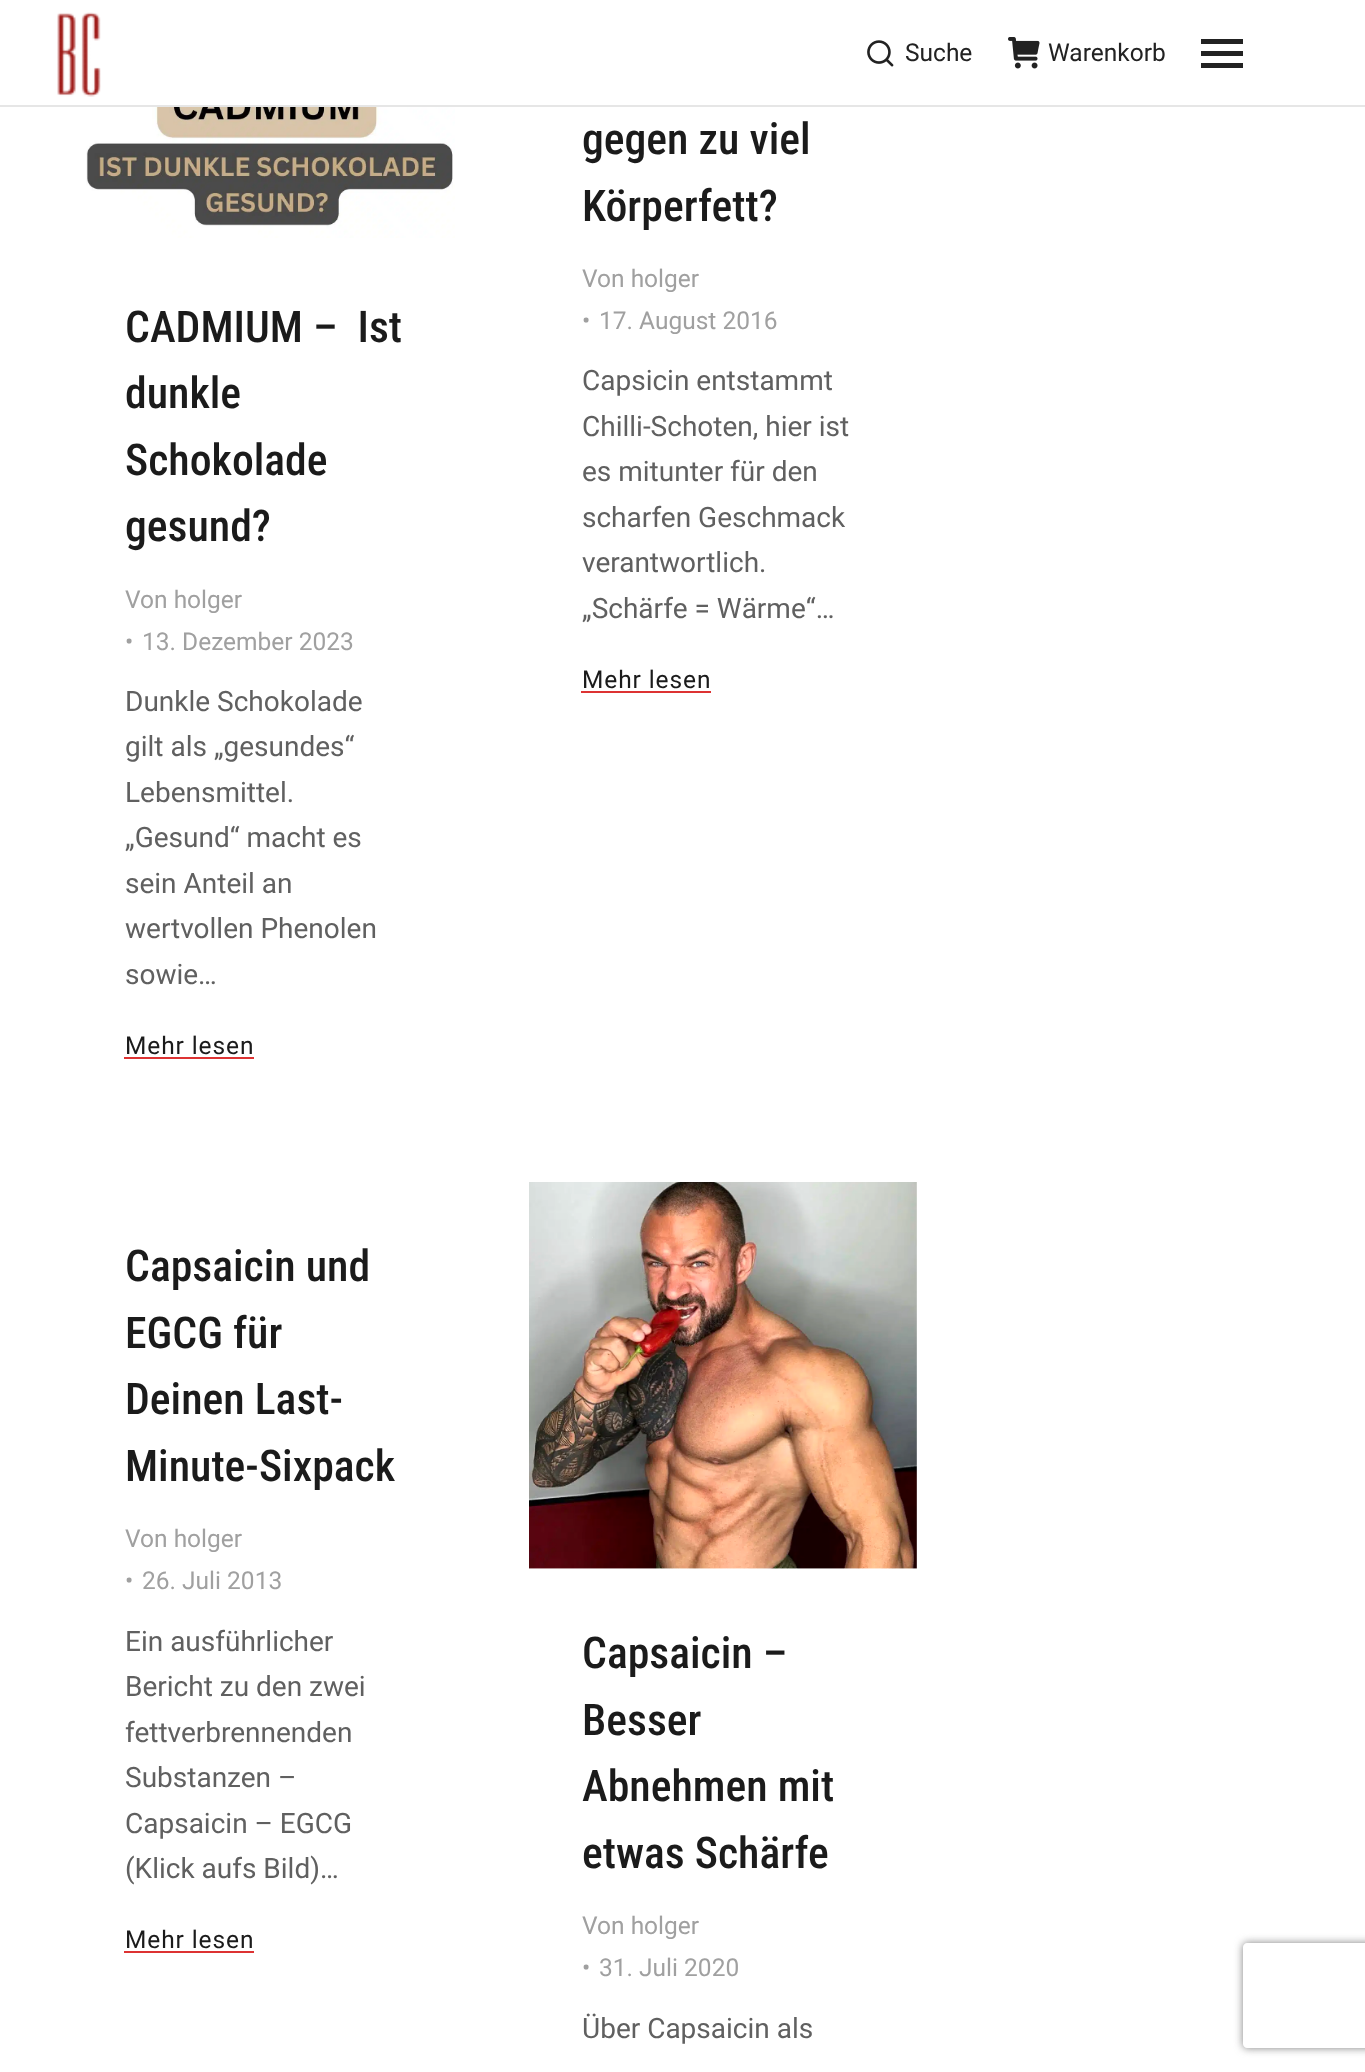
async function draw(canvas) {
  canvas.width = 1365
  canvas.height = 2072
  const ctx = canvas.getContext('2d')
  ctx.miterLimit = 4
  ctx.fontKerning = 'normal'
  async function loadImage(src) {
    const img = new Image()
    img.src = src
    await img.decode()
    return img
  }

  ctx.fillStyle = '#fff'
  ctx.fillRect(0, 0, 1365, 2072)
  ctx.fillStyle = '#e6e6e6'
  ctx.fillRect(0, 105, 1365, 2)
  ctx.drawImage(await loadImage('image0.png'), 57, 12, 44, 85)
  ctx.drawImage(await loadImage('image1.png'), 867, 40, 27, 27)
  ctx.font = '24.5px Roboto'
  ctx.fillStyle = '#222'
  ctx.fillText('Suche', 905, 61)
  ctx.drawImage(await loadImage('image2.png'), 1008, 37, 32, 32)
  ctx.fillText('Warenkorb', 1048, 61)
  ctx.fillRect(1201, 39, 42, 5)
  ctx.fillRect(1201, 51, 42, 5)
  ctx.fillRect(1201, 63, 42, 5)
  ctx.drawImage(await loadImage('image3.png'), 86, 107, 369, 131)
  ctx.font = '500 43.75px Roboto Condensed'
  ctx.fillStyle = '#1b1b1b'
  ctx.fillText('CADMIUM –  Ist', 125, 342)
  ctx.fillText('dunkle', 125, 408)
  ctx.fillText('Schokolade', 125, 475)
  ctx.fillText('gesund?', 125, 541)
  ctx.font = '24.5px Roboto'
  ctx.fillStyle = '#a0a0a0'
  ctx.fillText('Von holger', 125, 608)
  ctx.fillText('•', 125, 650)
  ctx.fillText('13. Dezember 2023', 142, 650)
  ctx.font = '28px Roboto'
  ctx.fillStyle = '#606060'
  ctx.fillText('Dunkle Schokolade', 125, 711)
  ctx.fillText('gilt als „gesundes“', 125, 756)
  ctx.fillText('Lebensmittel.', 125, 802)
  ctx.fillText('„Gesund“ macht es', 125, 847)
  ctx.fillText('sein Anteil an', 125, 893)
  ctx.fillText('wertvollen Phenolen', 125, 938)
  ctx.fillText('sowie…', 125, 984)
  ctx.fillStyle = '#d33'
  ctx.fillRect(124, 1057, 130, 2)
  ctx.letterSpacing = '0.9px'
  ctx.font = '24.5px Roboto'
  ctx.fillStyle = '#1b1b1b'
  ctx.fillText('Mehr lesen', 125, 1054)
  ctx.letterSpacing = '0px'
  ctx.font = '500 43.75px Roboto Condensed'
  ctx.fillText('gegen zu viel', 582, 154)
  ctx.fillText('Körperfett?', 582, 221)
  ctx.font = '24.5px Roboto'
  ctx.fillStyle = '#a0a0a0'
  ctx.fillText('Von holger', 582, 287)
  ctx.fillText('•', 582, 329)
  ctx.fillText('17. August 2016', 599, 329)
  ctx.font = '28px Roboto'
  ctx.fillStyle = '#606060'
  ctx.fillText('Capsicin entstammt', 582, 390)
  ctx.fillText('Chilli-Schoten, hier ist', 582, 436)
  ctx.fillText('es mitunter für den', 582, 481)
  ctx.fillText('scharfen Geschmack', 582, 527)
  ctx.fillText('verantwortlich.', 582, 572)
  ctx.fillText('„Schärfe = Wärme“…', 582, 618)
  ctx.fillStyle = '#d33'
  ctx.fillRect(581, 691, 130, 2)
  ctx.letterSpacing = '0.9px'
  ctx.font = '24.5px Roboto'
  ctx.fillStyle = '#1b1b1b'
  ctx.fillText('Mehr lesen', 582, 688)
  ctx.letterSpacing = '0px'
  ctx.font = '500 43.75px Roboto Condensed'
  ctx.fillText('Capsaicin und', 125, 1281)
  ctx.fillText('EGCG für', 125, 1348)
  ctx.fillText('Deinen Last-', 125, 1414)
  ctx.fillText('Minute-Sixpack', 125, 1481)
  ctx.font = '24.5px Roboto'
  ctx.fillStyle = '#a0a0a0'
  ctx.fillText('Von holger', 125, 1547)
  ctx.fillText('•', 125, 1589)
  ctx.fillText('26. Juli 2013', 142, 1589)
  ctx.font = '28px Roboto'
  ctx.fillStyle = '#606060'
  ctx.fillText('Ein ausführlicher', 125, 1651)
  ctx.fillText('Bericht zu den zwei', 125, 1696)
  ctx.fillText('fettverbrennenden', 125, 1742)
  ctx.fillText('Substanzen –', 125, 1787)
  ctx.fillText('Capsaicin – EGCG', 125, 1833)
  ctx.fillText('(Klick aufs Bild)…', 125, 1878)
  ctx.fillStyle = '#d33'
  ctx.fillRect(124, 1951, 130, 2)
  ctx.letterSpacing = '0.9px'
  ctx.font = '24.5px Roboto'
  ctx.fillStyle = '#1b1b1b'
  ctx.fillText('Mehr lesen', 125, 1948)
  ctx.drawImage(await loadImage('image4.png'), 529, 1182, 388, 387)
  ctx.letterSpacing = '0px'
  ctx.font = '500 43.75px Roboto Condensed'
  ctx.fillText('Capsaicin –', 582, 1668)
  ctx.fillText('Besser', 582, 1735)
  ctx.fillText('Abnehmen mit', 582, 1801)
  ctx.fillText('etwas Schärfe', 582, 1868)
  ctx.font = '24.5px Roboto'
  ctx.fillStyle = '#a0a0a0'
  ctx.fillText('Von holger', 582, 1934)
  ctx.fillText('•', 582, 1976)
  ctx.fillText('31. Juli 2020', 599, 1976)
  ctx.font = '28px Roboto'
  ctx.fillStyle = '#606060'
  ctx.fillText('Über Capsaicin als', 582, 2038)
  ctx.save()
  ctx.beginPath()
  ctx.moveTo(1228, 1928)
  ctx.lineTo(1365, 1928)
  ctx.lineTo(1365, 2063)
  ctx.lineTo(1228, 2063)
  ctx.closePath()
  ctx.moveTo(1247, 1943)
  ctx.lineTo(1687, 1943)
  ctx.bezierCurveTo(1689, 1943, 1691, 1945, 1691, 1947)
  ctx.lineTo(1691, 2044)
  ctx.bezierCurveTo(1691, 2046, 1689, 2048, 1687, 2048)
  ctx.lineTo(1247, 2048)
  ctx.bezierCurveTo(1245, 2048, 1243, 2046, 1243, 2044)
  ctx.lineTo(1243, 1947)
  ctx.bezierCurveTo(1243, 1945, 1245, 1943, 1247, 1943)
  ctx.closePath()
  ctx.clip('evenodd')
  ctx.fillStyle = '#808080'
  ctx.filter = 'blur(4.5px)'
  ctx.beginPath()
  ctx.roundRect(1243, 1943, 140, 105, 4)
  ctx.fill()
  ctx.filter = 'none'
  ctx.restore()
}

draw(document.querySelector('canvas'))
